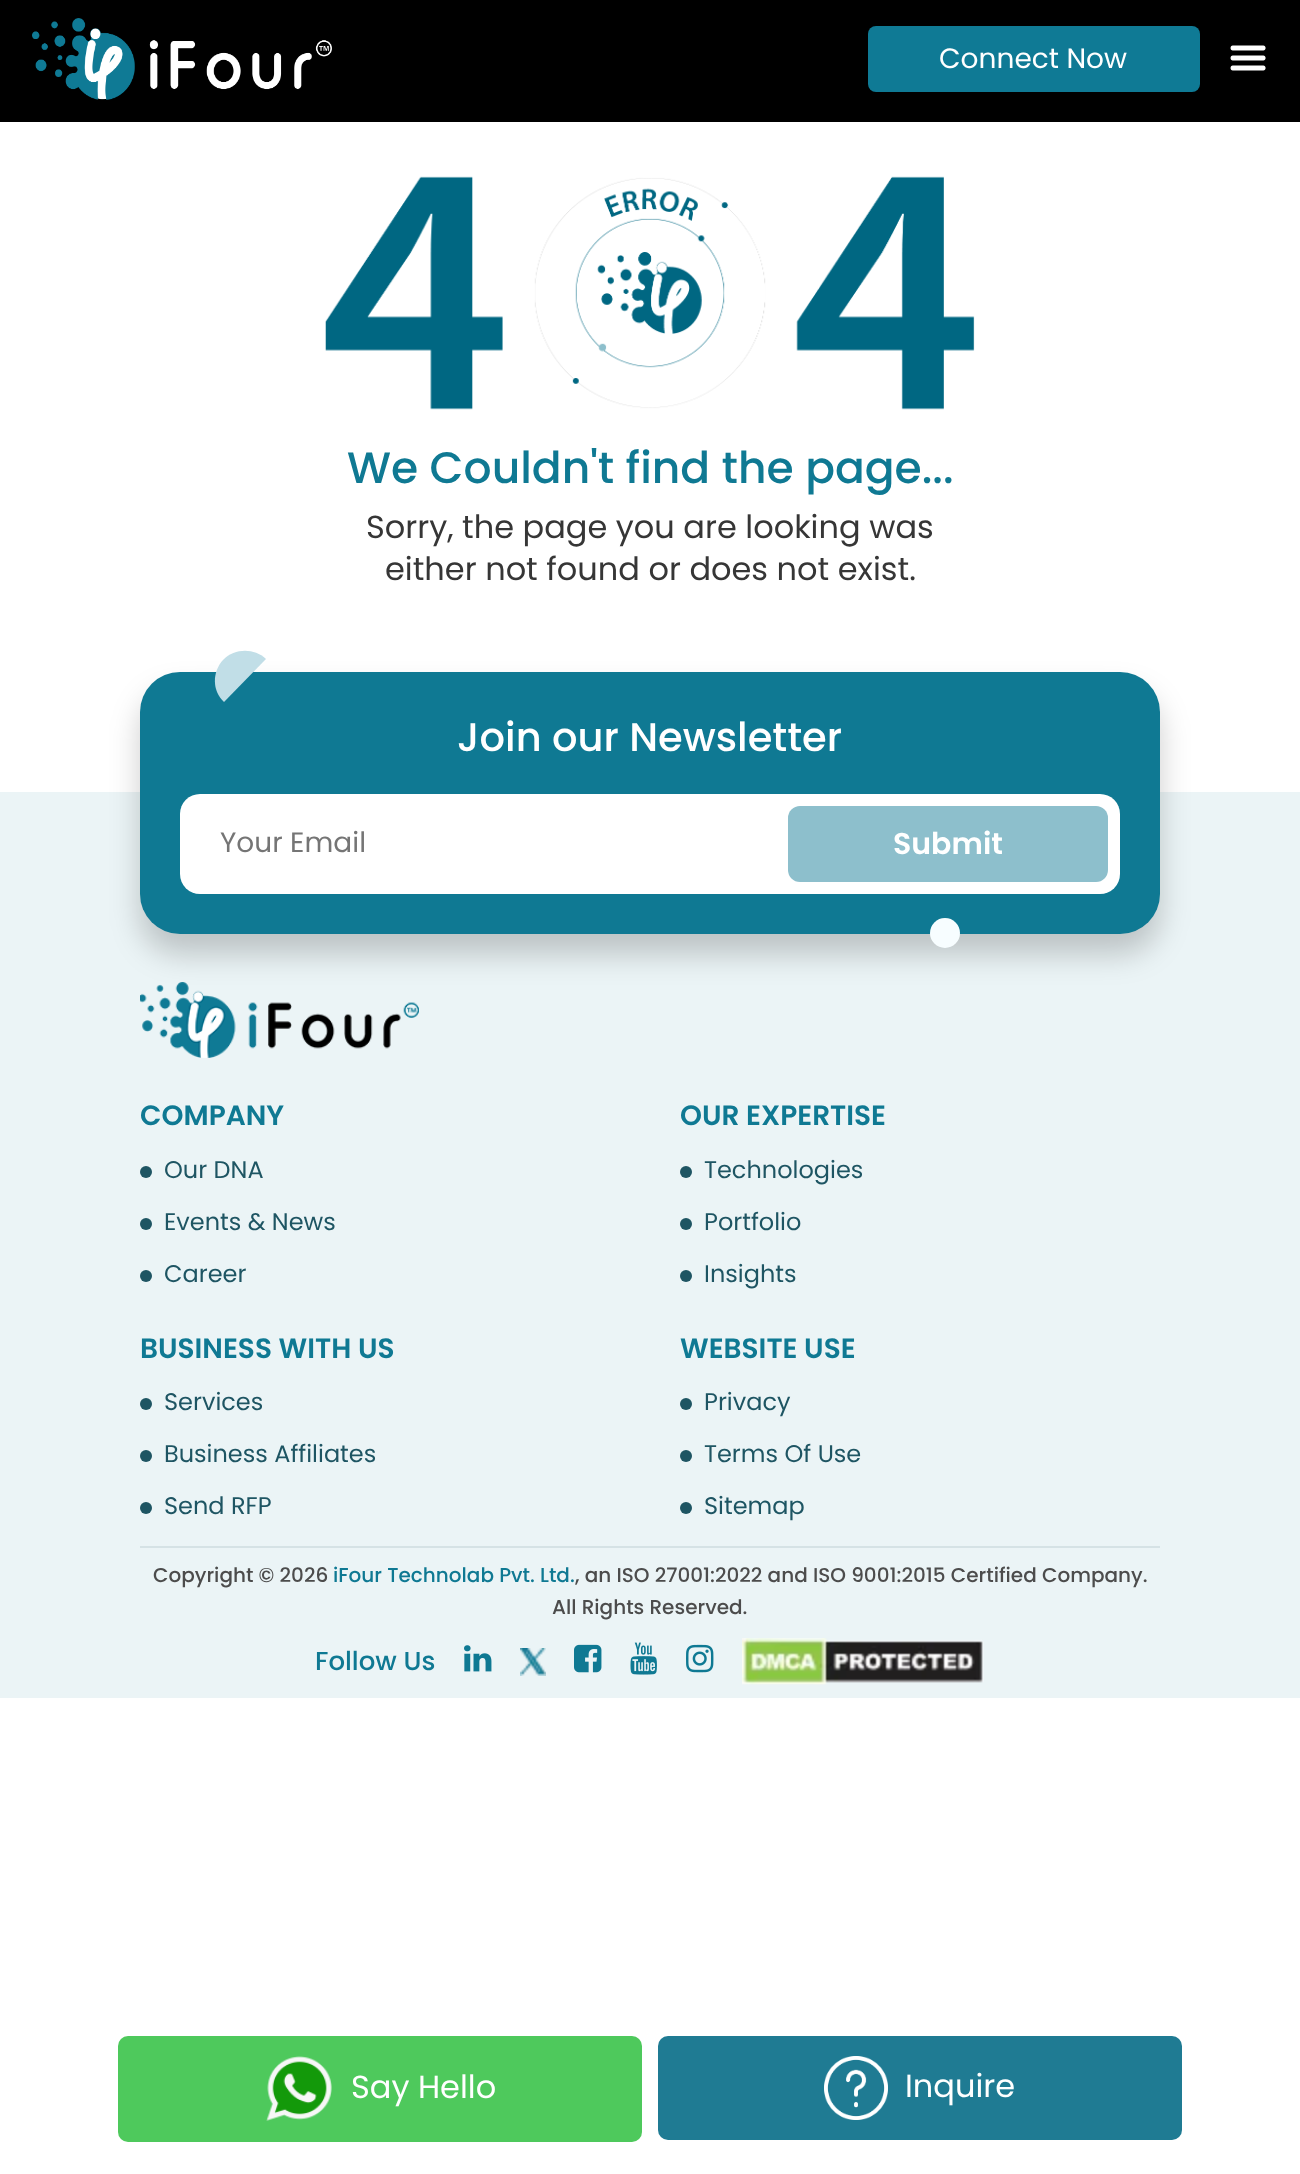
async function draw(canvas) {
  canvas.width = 1300
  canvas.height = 2174
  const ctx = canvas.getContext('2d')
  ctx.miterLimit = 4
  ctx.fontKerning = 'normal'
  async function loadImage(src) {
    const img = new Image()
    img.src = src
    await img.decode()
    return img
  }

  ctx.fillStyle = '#fff'
  ctx.fillRect(0, 0, 1300, 2174)
  ctx.fillStyle = '#000'
  ctx.fillRect(0, 0, 1300, 122)
  ctx.drawImage(await loadImage('image0.png'), 32, 18, 300, 82)
  ctx.fillStyle = '#0f7a95'
  ctx.beginPath()
  ctx.roundRect(868, 26, 332, 66, 8)
  ctx.fill()
  ctx.font = '28px Poppins'
  ctx.fillStyle = '#fff'
  ctx.fillText('Connect Now', 939, 68)
  ctx.drawImage(await loadImage('image1.png'), 1230, 45, 36, 26)
  ctx.drawImage(await loadImage('image2.png'), 325, 176, 650, 234)
  ctx.font = '500 44px Poppins'
  ctx.fillStyle = '#0f7993'
  ctx.fillText('We Couldn\'t find the page...', 347, 483)
  ctx.font = '32px Poppins'
  ctx.fillStyle = '#363636'
  ctx.fillText('Sorry, the page you are looking was', 366, 538)
  ctx.fillText('either not found or does not exist.', 385, 580)
  ctx.fillStyle = '#ebf4f6'
  ctx.fillRect(0, 792, 1300, 906)
  ctx.drawImage(await loadImage('image3.png'), 140, 982, 279, 76)
  ctx.fillStyle = '#00000033'
  ctx.filter = 'blur(15px)'
  ctx.beginPath()
  ctx.roundRect(140, 692, 1020, 262, 40)
  ctx.fill()
  ctx.filter = 'none'
  ctx.fillStyle = '#0f7993'
  ctx.beginPath()
  ctx.roundRect(140, 672, 1020, 262, 40)
  ctx.fill()
  ctx.fillStyle = '#c1dee7'
  ctx.beginPath()
  ctx.moveTo(223, 660)
  ctx.bezierCurveTo(235, 648, 254, 648, 266, 659)
  ctx.lineTo(224, 702)
  ctx.bezierCurveTo(212, 691, 212, 672, 223, 660)
  ctx.closePath()
  ctx.fill()
  ctx.font = '500 40px Poppins'
  ctx.fillStyle = '#fff'
  ctx.fillText('Join our Newsletter', 457, 751)
  ctx.beginPath()
  ctx.roundRect(180, 794, 940, 100, 20)
  ctx.fill()
  ctx.font = '28px Poppins'
  ctx.fillStyle = '#757575'
  ctx.fillText('Your Email', 220, 852)
  ctx.fillStyle = '#8dbfcc'
  ctx.beginPath()
  ctx.roundRect(788, 806, 320, 76, 12)
  ctx.fill()
  ctx.font = '600 30px Poppins'
  ctx.fillStyle = '#fff'
  ctx.fillText('Submit', 893, 854)
  ctx.fillStyle = '#f7fdff'
  ctx.beginPath()
  ctx.arc(945, 933, 15, 0, 2 * Math.PI)
  ctx.fill()
  ctx.font = '600 28px Poppins'
  ctx.fillStyle = '#0f7993'
  ctx.fillText('COMPANY', 140, 1125)
  ctx.fillStyle = '#1e5563'
  ctx.beginPath()
  ctx.arc(146, 1172, 6, 0, 2 * Math.PI)
  ctx.fill()
  ctx.font = '24px Poppins'
  ctx.fillText('Our DNA', 164, 1178)
  ctx.beginPath()
  ctx.arc(146, 1224, 6, 0, 2 * Math.PI)
  ctx.fill()
  ctx.fillText('Events & News', 164, 1230)
  ctx.beginPath()
  ctx.arc(146, 1276, 6, 0, 2 * Math.PI)
  ctx.fill()
  ctx.fillText('Career', 164, 1282)
  ctx.font = '600 28px Poppins'
  ctx.fillStyle = '#0f7993'
  ctx.fillText('OUR EXPERTISE', 680, 1125)
  ctx.fillStyle = '#1e5563'
  ctx.beginPath()
  ctx.arc(686, 1172, 6, 0, 2 * Math.PI)
  ctx.fill()
  ctx.font = '24px Poppins'
  ctx.fillText('Technologies', 704, 1178)
  ctx.beginPath()
  ctx.arc(686, 1224, 6, 0, 2 * Math.PI)
  ctx.fill()
  ctx.fillText('Portfolio', 704, 1230)
  ctx.beginPath()
  ctx.arc(686, 1276, 6, 0, 2 * Math.PI)
  ctx.fill()
  ctx.fillText('Insights', 704, 1282)
  ctx.font = '600 28px Poppins'
  ctx.fillStyle = '#0f7993'
  ctx.fillText('BUSINESS WITH US', 140, 1358)
  ctx.fillStyle = '#1e5563'
  ctx.beginPath()
  ctx.arc(146, 1404, 6, 0, 2 * Math.PI)
  ctx.fill()
  ctx.font = '24px Poppins'
  ctx.fillText('Services', 164, 1410)
  ctx.beginPath()
  ctx.arc(146, 1456, 6, 0, 2 * Math.PI)
  ctx.fill()
  ctx.fillText('Business Affiliates', 164, 1462)
  ctx.beginPath()
  ctx.arc(146, 1508, 6, 0, 2 * Math.PI)
  ctx.fill()
  ctx.fillText('Send RFP', 164, 1514)
  ctx.font = '600 28px Poppins'
  ctx.fillStyle = '#0f7993'
  ctx.fillText('WEBSITE USE', 680, 1358)
  ctx.fillStyle = '#1e5563'
  ctx.beginPath()
  ctx.arc(686, 1404, 6, 0, 2 * Math.PI)
  ctx.fill()
  ctx.font = '24px Poppins'
  ctx.fillText('Privacy', 704, 1410)
  ctx.beginPath()
  ctx.arc(686, 1456, 6, 0, 2 * Math.PI)
  ctx.fill()
  ctx.fillText('Terms Of Use', 704, 1462)
  ctx.beginPath()
  ctx.arc(686, 1508, 6, 0, 2 * Math.PI)
  ctx.fill()
  ctx.fillText('Sitemap', 704, 1514)
  ctx.fillStyle = '#d5e2e5'
  ctx.fillRect(140, 1546, 1020, 2)
  ctx.font = '500 20px Poppins'
  ctx.fillStyle = '#4c4c4c'
  ctx.fillText('Copyright © 2026', 153, 1582)
  ctx.fillStyle = '#0f7993'
  ctx.fillText('iFour Technolab Pvt. Ltd.', 333, 1582)
  ctx.fillStyle = '#4c4c4c'
  ctx.fillText(', an ISO 27001:2022 and ISO 9001:2015 Certified Company.', 575, 1582)
  ctx.fillText('All Rights Reserved.', 552, 1614)
  ctx.font = '500 26px Poppins'
  ctx.fillStyle = '#0f7993'
  ctx.fillText('Follow Us', 315, 1670)
  ctx.drawImage(await loadImage('image4.png'), 464, 1645, 28, 27)
  ctx.drawImage(await loadImage('image5.png'), 520, 1648, 26, 28)
  ctx.drawImage(await loadImage('image6.png'), 574, 1644, 28, 29)
  ctx.drawImage(await loadImage('image7.png'), 630, 1642, 27, 33)
  ctx.drawImage(await loadImage('image8.png'), 686, 1644, 28, 29)
  ctx.drawImage(await loadImage('image9.png'), 742, 1638, 242, 47)
  ctx.fillStyle = '#4ec95c'
  ctx.beginPath()
  ctx.roundRect(118, 2036, 524, 106, 10)
  ctx.fill()
  ctx.drawImage(await loadImage('image10.png'), 266, 2056, 66, 65)
  ctx.font = '32px Poppins'
  ctx.fillStyle = '#fff'
  ctx.fillText('Say Hello', 351, 2098)
  ctx.fillStyle = '#1f7b93'
  ctx.beginPath()
  ctx.roundRect(658, 2036, 524, 104, 10)
  ctx.fill()
  ctx.drawImage(await loadImage('image11.png'), 824, 2056, 64, 64)
  ctx.fillStyle = '#fff'
  ctx.fillText('Inquire', 905, 2097)
}

draw(document.querySelector('canvas'))
